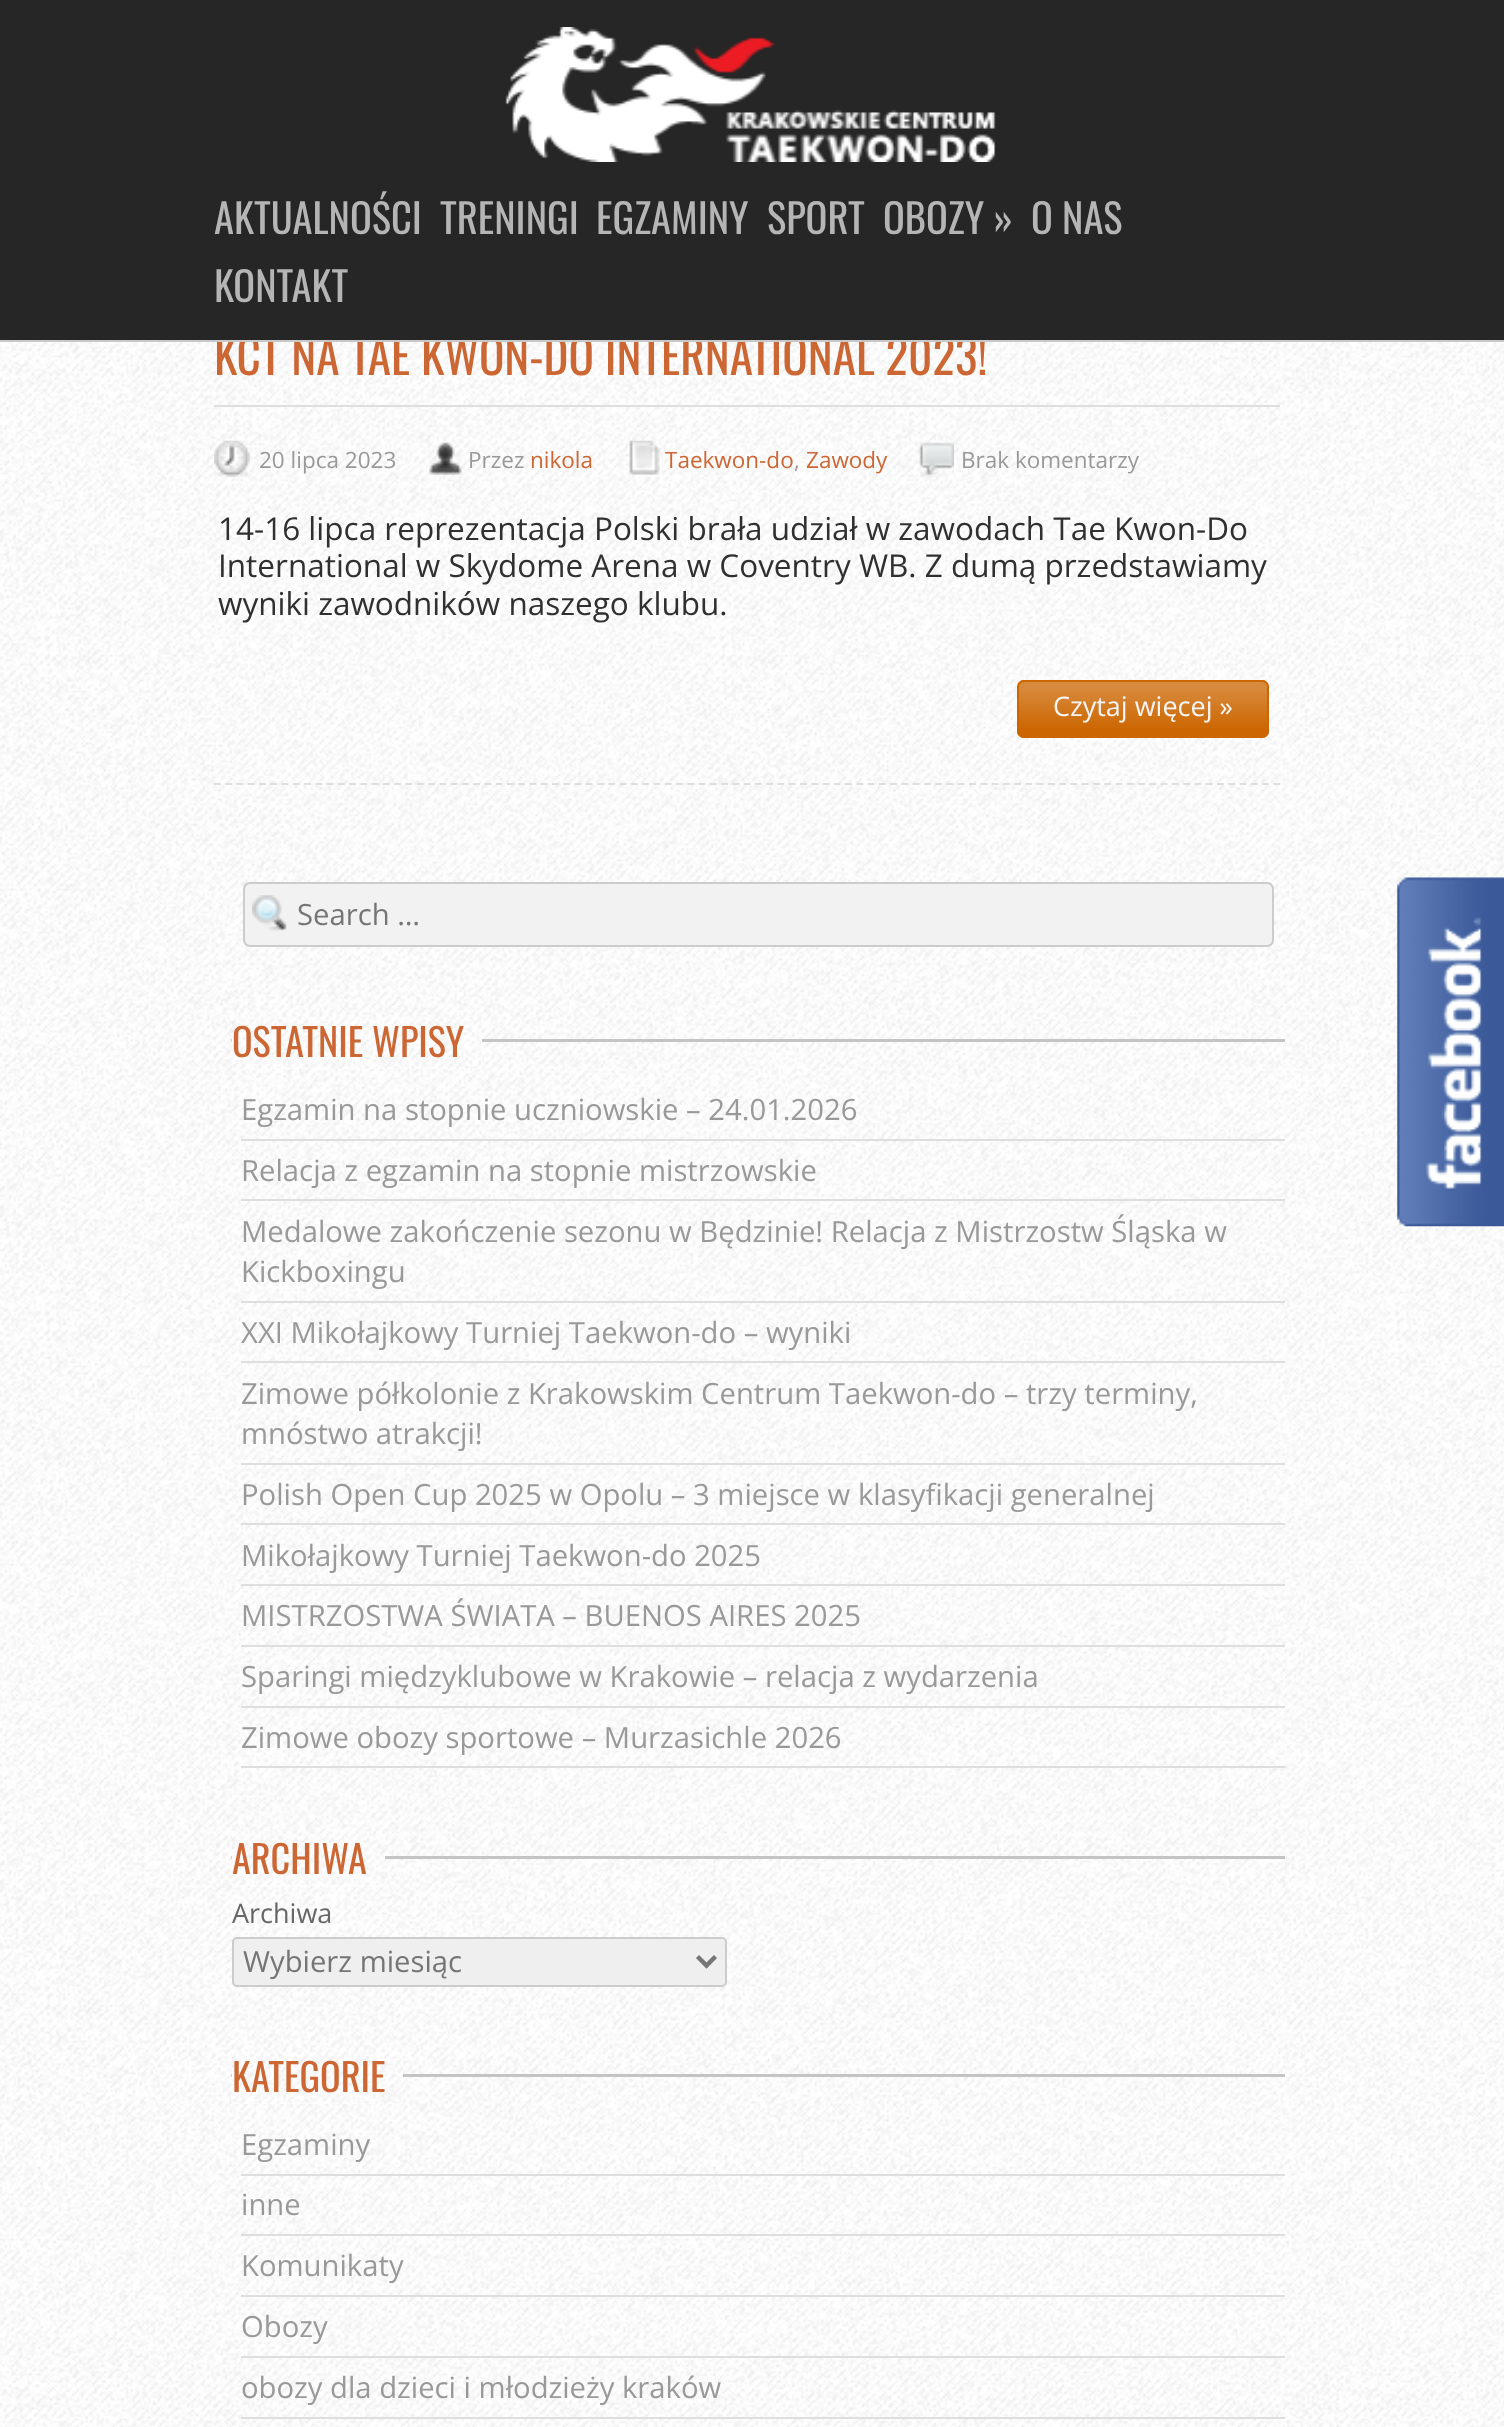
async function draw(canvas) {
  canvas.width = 1504
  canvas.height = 2427
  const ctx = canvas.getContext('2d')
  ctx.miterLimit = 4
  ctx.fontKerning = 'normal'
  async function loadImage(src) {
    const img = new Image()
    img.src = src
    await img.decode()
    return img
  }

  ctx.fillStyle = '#fff'
  ctx.fillRect(0, 0, 1504, 2427)
  ctx.drawImage(await loadImage('image1.png'), 0, 342, 1504, 2085)
  ctx.font = '47.25px Oswald'
  ctx.fillStyle = '#c63'
  ctx.fillText('KCT NA TAE KWON-DO INTERNATIONAL 2023!', 214, 375)
  ctx.fillStyle = '#262626'
  ctx.fillRect(0, 0, 1504, 340)
  ctx.fillStyle = '#c8c8c8'
  ctx.fillRect(0, 340, 1504, 2)
  ctx.drawImage(await loadImage('image0.png'), 505, 27, 491, 135)
  ctx.font = '40.5px Oswald'
  ctx.fillStyle = '#b5b5b5'
  ctx.fillText('AKTUALNOŚCI', 214, 234)
  ctx.fillText('TRENINGI', 440, 234)
  ctx.fillText('EGZAMINY', 596, 234)
  ctx.fillText('SPORT', 767, 234)
  ctx.fillText('OBOZY »', 883, 234)
  ctx.fillText('O NAS', 1031, 234)
  ctx.fillText('KONTAKT', 214, 302)
  ctx.beginPath()
  ctx.moveTo(214, 784)
  ctx.lineTo(1280, 784)
  ctx.strokeStyle = '#dedede'
  ctx.lineWidth = 2.2
  ctx.setLineDash([6.75, 4.52])
  ctx.stroke()
  ctx.fillStyle = '#dedede'
  ctx.fillRect(214, 405, 1066, 2)
  ctx.drawImage(await loadImage('image2.png'), 214, 440, 36, 37)
  ctx.font = '22.5px Open Sans'
  ctx.fillStyle = '#999'
  ctx.fillText('20 lipca 2023', 259, 468)
  ctx.drawImage(await loadImage('image3.png'), 429, 442, 33, 33)
  ctx.fillText('Przez', 468, 468)
  ctx.fillStyle = '#c63'
  ctx.fillText('nikola', 530, 468)
  ctx.drawImage(await loadImage('image4.png'), 628, 440, 32, 35)
  ctx.fillText('Taekwon-do', 665, 468)
  ctx.fillStyle = '#999'
  ctx.fillText(',', 794, 468)
  ctx.fillStyle = '#c63'
  ctx.fillText('Zawody', 806, 468)
  ctx.drawImage(await loadImage('image5.png'), 919, 442, 35, 35)
  ctx.fillStyle = '#999'
  ctx.fillText('Brak komentarzy', 961, 468)
  ctx.font = '31.5px Open Sans'
  ctx.fillStyle = '#303030'
  ctx.fillText('14-16 lipca reprezentacja Polski brała udział w zawodach Tae Kwon-Do', 218, 540)
  ctx.fillText('International w Skydome Arena w Coventry WB. Z dumą przedstawiamy', 218, 577)
  ctx.fillText('wyniki zawodników naszego klubu.', 218, 615)
  ctx.fillStyle = '#c60'
  ctx.beginPath()
  ctx.roundRect(1017, 680, 252, 58, 7)
  ctx.fill()
  ctx.drawImage(await loadImage('image6.png'), 1017, 681, 252, 47)
  ctx.beginPath()
  ctx.roundRect(1018, 681, 250, 56, 6)
  ctx.strokeStyle = '#c60'
  ctx.lineWidth = 2
  ctx.setLineDash([])
  ctx.stroke()
  ctx.font = '27px Open Sans'
  ctx.fillStyle = '#f5f5f5'
  ctx.fillText('Czytaj więcej »', 1053, 716)
  ctx.fillStyle = '#f2f2f2'
  ctx.beginPath()
  ctx.roundRect(243, 882, 1031, 65, 7)
  ctx.fill()
  ctx.drawImage(await loadImage('image7.png'), 252, 895, 35, 36)
  ctx.beginPath()
  ctx.roundRect(244, 883, 1029, 63, 6)
  ctx.strokeStyle = '#ccc'
  ctx.stroke()
  ctx.font = '29.25px Open Sans'
  ctx.fillStyle = '#757575'
  ctx.fillText('Search …', 297, 925)
  ctx.fillStyle = '#c4c4c4'
  ctx.fillRect(231, 1039, 1054, 3)
  ctx.fillStyle = '#fff'
  ctx.fillRect(232, 1015, 250, 54)
  ctx.drawImage(await loadImage('image8.png'), 231, 1014, 251, 55)
  ctx.font = '38.25px Oswald'
  ctx.fillStyle = '#c63'
  ctx.fillText('OSTATNIE WPISY', 232, 1057)
  ctx.fillStyle = '#dedede'
  ctx.fillRect(241, 1139, 1044, 2)
  ctx.font = '29.25px Open Sans'
  ctx.fillStyle = '#999'
  ctx.fillText('Egzamin na stopnie uczniowskie – 24.01.2026', 241, 1120)
  ctx.fillStyle = '#dedede'
  ctx.fillRect(241, 1199, 1044, 2)
  ctx.fillStyle = '#999'
  ctx.fillText('Relacja z egzamin na stopnie mistrzowskie', 241, 1181)
  ctx.fillStyle = '#dedede'
  ctx.fillRect(241, 1301, 1044, 2)
  ctx.fillStyle = '#999'
  ctx.fillText('Medalowe zakończenie sezonu w Będzinie! Relacja z Mistrzostw Śląska w', 241, 1242)
  ctx.fillText('Kickboxingu', 241, 1282)
  ctx.fillStyle = '#dedede'
  ctx.fillRect(241, 1361, 1044, 2)
  ctx.fillStyle = '#999'
  ctx.fillText('XXI Mikołajkowy Turniej Taekwon-do – wyniki', 241, 1343)
  ctx.fillStyle = '#dedede'
  ctx.fillRect(241, 1463, 1044, 2)
  ctx.fillStyle = '#999'
  ctx.fillText('Zimowe półkolonie z Krakowskim Centrum Taekwon-do – trzy terminy,', 241, 1404)
  ctx.fillText('mnóstwo atrakcji!', 241, 1444)
  ctx.fillStyle = '#dedede'
  ctx.fillRect(241, 1523, 1044, 2)
  ctx.fillStyle = '#999'
  ctx.fillText('Polish Open Cup 2025 w Opolu – 3 miejsce w klasyfikacji generalnej', 241, 1505)
  ctx.fillStyle = '#dedede'
  ctx.fillRect(241, 1584, 1044, 2)
  ctx.fillStyle = '#999'
  ctx.fillText('Mikołajkowy Turniej Taekwon-do 2025', 241, 1566)
  ctx.fillStyle = '#dedede'
  ctx.fillRect(241, 1645, 1044, 2)
  ctx.fillStyle = '#999'
  ctx.fillText('MISTRZOSTWA ŚWIATA – BUENOS AIRES 2025', 241, 1626)
  ctx.fillStyle = '#dedede'
  ctx.fillRect(241, 1706, 1044, 2)
  ctx.fillStyle = '#999'
  ctx.fillText('Sparingi międzyklubowe w Krakowie – relacja z wydarzenia', 241, 1687)
  ctx.fillStyle = '#dedede'
  ctx.fillRect(241, 1766, 1044, 2)
  ctx.fillStyle = '#999'
  ctx.fillText('Zimowe obozy sportowe – Murzasichle 2026', 241, 1748)
  ctx.fillStyle = '#c4c4c4'
  ctx.fillRect(231, 1856, 1054, 3)
  ctx.fillStyle = '#fff'
  ctx.fillRect(232, 1832, 153, 54)
  ctx.drawImage(await loadImage('image9.png'), 231, 1831, 154, 55)
  ctx.font = '38.25px Oswald'
  ctx.fillStyle = '#c63'
  ctx.fillText('ARCHIWA', 232, 1874)
  ctx.font = '27px Open Sans'
  ctx.fillStyle = '#666'
  ctx.fillText('Archiwa', 232, 1923)
  ctx.fillStyle = '#efefef'
  ctx.beginPath()
  ctx.roundRect(233, 1938, 493, 48, 4)
  ctx.fill()
  ctx.stroke()
  ctx.beginPath()
  ctx.moveTo(697.5, 1956.5)
  ctx.lineTo(706.5, 1965.5)
  ctx.lineTo(715.5, 1956.5)
  ctx.strokeStyle = '#777'
  ctx.lineWidth = 4.5
  ctx.stroke()
  ctx.font = '29.25px Open Sans'
  ctx.fillStyle = '#757575'
  ctx.fillText('Wybierz miesiąc', 243, 1972)
  ctx.fillStyle = '#c4c4c4'
  ctx.fillRect(231, 2074, 1054, 3)
  ctx.fillStyle = '#fff'
  ctx.fillRect(232, 2050, 171, 54)
  ctx.drawImage(await loadImage('image10.png'), 231, 2050, 172, 54)
  ctx.font = '38.25px Oswald'
  ctx.fillStyle = '#c63'
  ctx.fillText('KATEGORIE', 232, 2092)
  ctx.fillStyle = '#dedede'
  ctx.fillRect(241, 2174, 1044, 2)
  ctx.font = '29.25px Open Sans'
  ctx.fillStyle = '#999'
  ctx.fillText('Egzaminy', 241, 2155)
  ctx.fillStyle = '#dedede'
  ctx.fillRect(241, 2234, 1044, 2)
  ctx.fillStyle = '#999'
  ctx.fillText('inne', 241, 2215)
  ctx.fillStyle = '#dedede'
  ctx.fillRect(241, 2295, 1044, 2)
  ctx.fillStyle = '#999'
  ctx.fillText('Komunikaty', 241, 2276)
  ctx.fillStyle = '#dedede'
  ctx.fillRect(241, 2356, 1044, 2)
  ctx.fillStyle = '#999'
  ctx.fillText('Obozy', 241, 2337)
  ctx.fillStyle = '#dedede'
  ctx.fillRect(241, 2417, 1044, 2)
  ctx.fillStyle = '#999'
  ctx.fillText('obozy dla dzieci i młodzieży kraków', 241, 2398)
  ctx.drawImage(await loadImage('image11.png'), 1397, 877, 107, 350)
}

draw(document.querySelector('canvas'))
